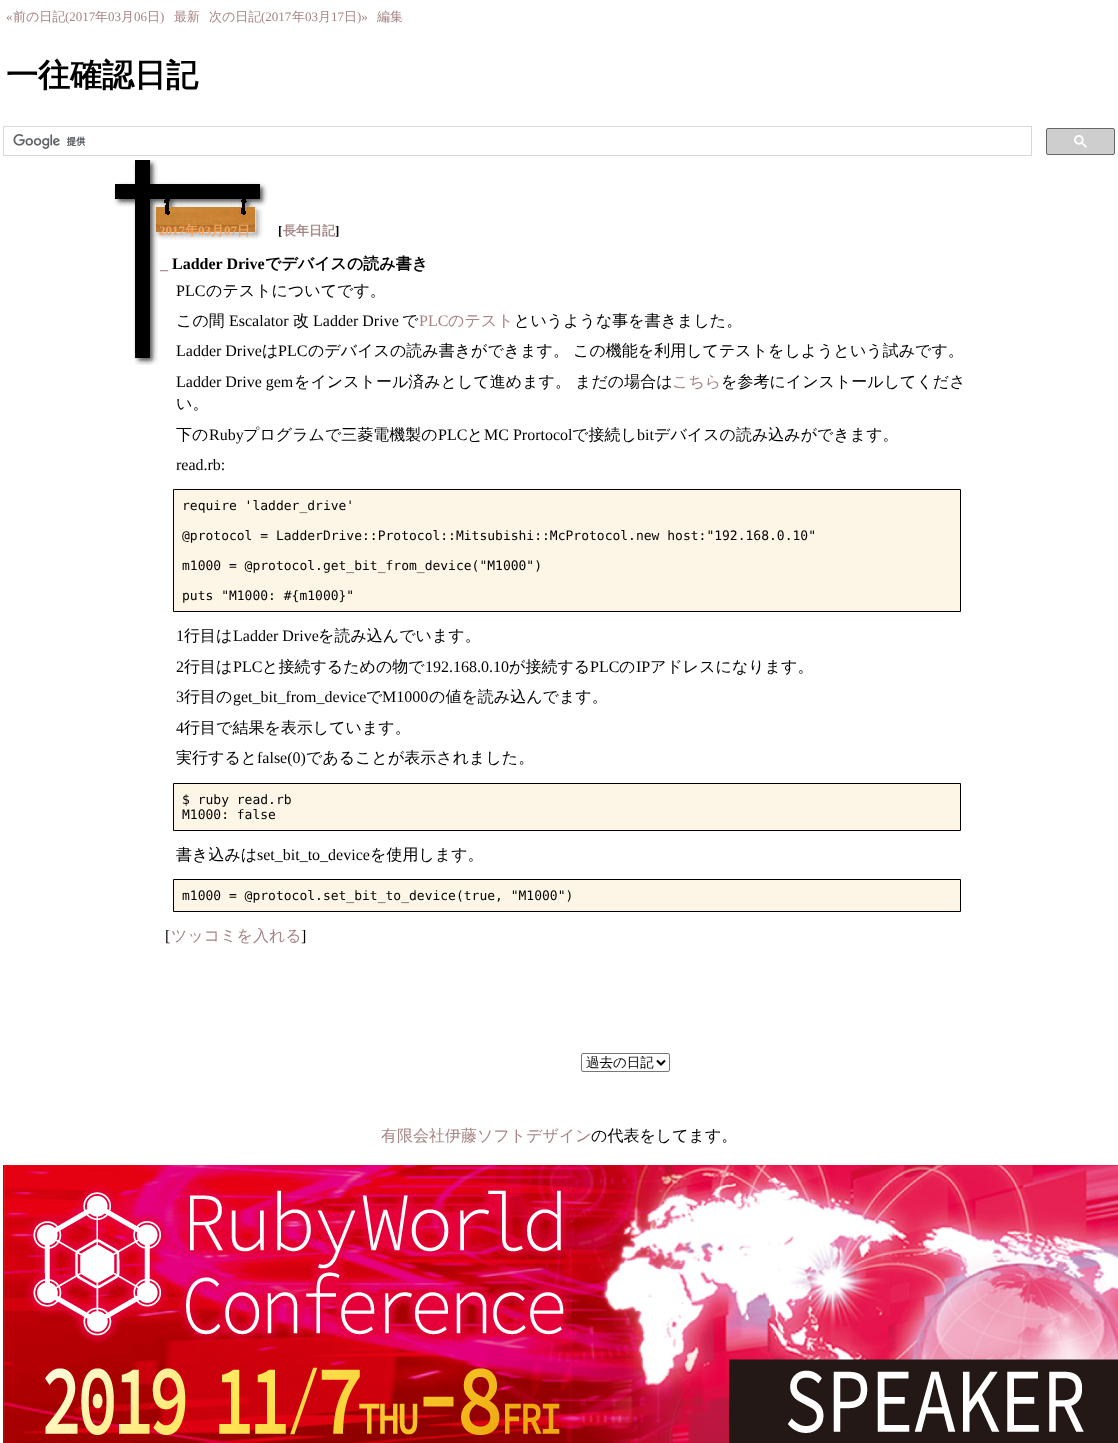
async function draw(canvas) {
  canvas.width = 1118
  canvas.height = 1443
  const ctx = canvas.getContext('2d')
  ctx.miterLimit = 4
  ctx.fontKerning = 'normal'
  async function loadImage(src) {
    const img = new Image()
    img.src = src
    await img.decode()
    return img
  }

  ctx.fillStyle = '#fff'
  ctx.fillRect(0, 0, 1118, 1443)
  ctx.font = '13px Liberation Serif'
  ctx.fillStyle = '#a58484'
  ctx.fillText('«', 6, 21)
  ctx.font = '500 13px WenQuanYi Zen Hei'
  ctx.fillText('前の日記', 13, 21)
  ctx.font = '13px Liberation Serif'
  ctx.fillText('(2017', 65, 21)
  ctx.font = '500 13px WenQuanYi Zen Hei'
  ctx.fillText('年', 95, 21)
  ctx.font = '13px Liberation Serif'
  ctx.fillText('03', 108, 21)
  ctx.font = '500 13px WenQuanYi Zen Hei'
  ctx.fillText('月', 121, 21)
  ctx.font = '13px Liberation Serif'
  ctx.fillText('06', 134, 21)
  ctx.font = '500 13px WenQuanYi Zen Hei'
  ctx.fillText('日', 147, 21)
  ctx.font = '13px Liberation Serif'
  ctx.fillText(')', 160, 21)
  ctx.font = '500 13px WenQuanYi Zen Hei'
  ctx.fillText('最新', 174, 21)
  ctx.fillText('次の日記', 209, 21)
  ctx.font = '13px Liberation Serif'
  ctx.fillText('(2017', 261, 21)
  ctx.font = '500 13px WenQuanYi Zen Hei'
  ctx.fillText('年', 292, 21)
  ctx.font = '13px Liberation Serif'
  ctx.fillText('03', 305, 21)
  ctx.font = '500 13px WenQuanYi Zen Hei'
  ctx.fillText('月', 318, 21)
  ctx.font = '13px Liberation Serif'
  ctx.fillText('17', 331, 21)
  ctx.font = '500 13px WenQuanYi Zen Hei'
  ctx.fillText('日', 344, 21)
  ctx.font = '13px Liberation Serif'
  ctx.fillText(')»', 357, 21)
  ctx.font = '500 13px WenQuanYi Zen Hei'
  ctx.fillText('編集', 377, 21)
  ctx.font = 'bold 32px WenQuanYi Zen Hei'
  ctx.fillStyle = '#000'
  ctx.fillText('一往確認日記', 6, 86)
  ctx.strokeStyle = '#d9d9d9'
  ctx.strokeRect(3.5, 126.5, 1028, 29)
  ctx.drawImage(await loadImage('image0.png'), 13, 134, 73, 15)
  ctx.fillStyle = '#cecece'
  ctx.beginPath()
  ctx.roundRect(1046.5, 128.5, 68, 26, 1.5)
  ctx.fill()
  ctx.strokeStyle = '#666'
  ctx.stroke()
  ctx.drawImage(await loadImage('image1.png'), 1074, 135, 13, 13)
  ctx.drawImage(await loadImage('image2.png'), 114, 160, 154, 205)
  ctx.font = 'bold 13px Liberation Serif'
  ctx.fillStyle = '#f4a460'
  ctx.fillText('2017', 159, 235)
  ctx.font = 'bold 13px WenQuanYi Zen Hei'
  ctx.fillText('年', 185, 235)
  ctx.font = 'bold 13px Liberation Serif'
  ctx.fillText('03', 198, 235)
  ctx.font = 'bold 13px WenQuanYi Zen Hei'
  ctx.fillText('月', 211, 235)
  ctx.font = 'bold 13px Liberation Serif'
  ctx.fillText('07', 224, 235)
  ctx.font = 'bold 13px WenQuanYi Zen Hei'
  ctx.fillText('日', 237, 235)
  ctx.font = 'bold 13px Liberation Serif'
  ctx.fillStyle = '#000'
  ctx.fillText('[', 278, 235)
  ctx.font = 'bold 13px WenQuanYi Zen Hei'
  ctx.fillStyle = '#a58484'
  ctx.fillText('長年日記', 283, 235)
  ctx.font = 'bold 13px Liberation Serif'
  ctx.fillStyle = '#000'
  ctx.fillText(']', 335, 235)
  ctx.font = 'bold 16px Liberation Serif'
  ctx.fillText('Ladder Drive', 172, 269)
  ctx.font = 'bold 16px WenQuanYi Zen Hei'
  ctx.fillText('でデバイスの読み書き', 265, 269)
  ctx.font = 'bold 16px Liberation Serif'
  ctx.fillStyle = '#a58484'
  ctx.fillText('_', 160, 269)
  ctx.font = '16px Liberation Serif'
  ctx.fillStyle = '#000'
  ctx.fillText('PLC', 176, 296)
  ctx.font = '500 16px WenQuanYi Zen Hei'
  ctx.fillText('のテストについてです。', 206, 296)
  ctx.fillText('この間', 176, 326)
  ctx.font = '16px Liberation Serif'
  ctx.fillText('Escalator', 229, 326)
  ctx.font = '500 16px WenQuanYi Zen Hei'
  ctx.fillText('改', 293, 326)
  ctx.font = '16px Liberation Serif'
  ctx.fillText('Ladder Drive', 313, 326)
  ctx.font = '500 16px WenQuanYi Zen Hei'
  ctx.fillText('で', 402, 326)
  ctx.font = '16px Liberation Serif'
  ctx.fillStyle = '#a58484'
  ctx.fillText('PLC', 419, 326)
  ctx.font = '500 16px WenQuanYi Zen Hei'
  ctx.fillText('のテスト', 448, 326)
  ctx.fillStyle = '#000'
  ctx.fillText('というような事を書きました。', 514, 326)
  ctx.font = '16px Liberation Serif'
  ctx.fillText('Ladder Drive', 176, 356)
  ctx.font = '500 16px WenQuanYi Zen Hei'
  ctx.fillText('は', 262, 356)
  ctx.font = '16px Liberation Serif'
  ctx.fillText('PLC', 278, 356)
  ctx.font = '500 16px WenQuanYi Zen Hei'
  ctx.fillText('のデバイスの読み書きができます。', 308, 356)
  ctx.fillText('この機能を利用してテストをしようという試みです。', 573, 356)
  ctx.font = '16px Liberation Serif'
  ctx.fillText('Ladder Drive gem', 176, 387)
  ctx.font = '500 16px WenQuanYi Zen Hei'
  ctx.fillText('をインストール済みとして進めます。', 294, 387)
  ctx.fillText('まだの場合は', 575, 387)
  ctx.fillStyle = '#a58484'
  ctx.fillText('こちら', 672, 387)
  ctx.fillStyle = '#000'
  ctx.fillText('を参考にインストールしてくださ', 721, 387)
  ctx.fillText('い。', 176, 409)
  ctx.fillText('下の', 176, 440)
  ctx.font = '16px Liberation Serif'
  ctx.fillText('Ruby', 209, 440)
  ctx.font = '500 16px WenQuanYi Zen Hei'
  ctx.fillText('プログラムで三菱電機製の', 243, 440)
  ctx.font = '16px Liberation Serif'
  ctx.fillText('PLC', 438, 440)
  ctx.font = '500 16px WenQuanYi Zen Hei'
  ctx.fillText('と', 467, 440)
  ctx.font = '16px Liberation Serif'
  ctx.fillText('MC Prortocol', 484, 440)
  ctx.font = '500 16px WenQuanYi Zen Hei'
  ctx.fillText('で接続し', 572, 440)
  ctx.font = '16px Liberation Serif'
  ctx.fillText('bit', 637, 440)
  ctx.font = '500 16px WenQuanYi Zen Hei'
  ctx.fillText('デバイスの読み込みができます。', 654, 440)
  ctx.font = '16px Liberation Serif'
  ctx.fillText('read.rb:', 176, 470)
  ctx.fillStyle = '#fdf5e6'
  ctx.beginPath()
  ctx.rect(173.5, 489.5, 787, 122)
  ctx.fill()
  ctx.strokeStyle = '#000'
  ctx.stroke()
  ctx.font = '13px DejaVu Sans Mono'
  ctx.fillStyle = '#000'
  ctx.fillText('require \'ladder_drive\'', 182, 510)
  ctx.fillText('@protocol = LadderDrive::Protocol::Mitsubishi::McProtocol.new host:"192.168.0.10"', 182, 540)
  ctx.fillText('m1000 = @protocol.get_bit_from_device("M1000")', 182, 570)
  ctx.fillText('puts "M1000: #{m1000}"', 182, 600)
  ctx.font = '16px Liberation Serif'
  ctx.fillText('1', 176, 641)
  ctx.font = '500 16px WenQuanYi Zen Hei'
  ctx.fillText('行目は', 184, 641)
  ctx.font = '16px Liberation Serif'
  ctx.fillText('Ladder Drive', 233, 641)
  ctx.font = '500 16px WenQuanYi Zen Hei'
  ctx.fillText('を読み込んでいます。', 318, 641)
  ctx.font = '16px Liberation Serif'
  ctx.fillText('2', 176, 672)
  ctx.font = '500 16px WenQuanYi Zen Hei'
  ctx.fillText('行目は', 184, 672)
  ctx.font = '16px Liberation Serif'
  ctx.fillText('PLC', 233, 672)
  ctx.font = '500 16px WenQuanYi Zen Hei'
  ctx.fillText('と接続するための物で', 262, 672)
  ctx.font = '16px Liberation Serif'
  ctx.fillText('192.168.0.10', 425, 672)
  ctx.font = '500 16px WenQuanYi Zen Hei'
  ctx.fillText('が接続する', 509, 672)
  ctx.font = '16px Liberation Serif'
  ctx.fillText('PLC', 590, 672)
  ctx.font = '500 16px WenQuanYi Zen Hei'
  ctx.fillText('の', 619, 672)
  ctx.font = '16px Liberation Serif'
  ctx.fillText('IP', 636, 672)
  ctx.font = '500 16px WenQuanYi Zen Hei'
  ctx.fillText('アドレスになります。', 650, 672)
  ctx.font = '16px Liberation Serif'
  ctx.fillText('3', 176, 702)
  ctx.font = '500 16px WenQuanYi Zen Hei'
  ctx.fillText('行目の', 184, 702)
  ctx.font = '16px Liberation Serif'
  ctx.fillText('get_bit_from_device', 233, 702)
  ctx.font = '500 16px WenQuanYi Zen Hei'
  ctx.fillText('で', 366, 702)
  ctx.font = '16px Liberation Serif'
  ctx.fillText('M1000', 382, 702)
  ctx.font = '500 16px WenQuanYi Zen Hei'
  ctx.fillText('の値を読み込んでます。', 429, 702)
  ctx.font = '16px Liberation Serif'
  ctx.fillText('4', 176, 733)
  ctx.font = '500 16px WenQuanYi Zen Hei'
  ctx.fillText('行目で結果を表示しています。', 184, 733)
  ctx.fillText('実行すると', 176, 763)
  ctx.font = '16px Liberation Serif'
  ctx.fillText('false(0)', 257, 763)
  ctx.font = '500 16px WenQuanYi Zen Hei'
  ctx.fillText('であることが表示されました。', 306, 763)
  ctx.fillStyle = '#fdf5e6'
  ctx.beginPath()
  ctx.rect(173.5, 783.5, 787, 47)
  ctx.fill()
  ctx.stroke()
  ctx.font = '13px DejaVu Sans Mono'
  ctx.fillStyle = '#000'
  ctx.fillText('$ ruby read.rb', 182, 804)
  ctx.fillText('M1000: false', 182, 819)
  ctx.font = '500 16px WenQuanYi Zen Hei'
  ctx.fillText('書き込みは', 176, 860)
  ctx.font = '16px Liberation Serif'
  ctx.fillText('set_bit_to_device', 257, 860)
  ctx.font = '500 16px WenQuanYi Zen Hei'
  ctx.fillText('を使用します。', 370, 860)
  ctx.fillStyle = '#fdf5e6'
  ctx.beginPath()
  ctx.rect(173.5, 879.5, 787, 32)
  ctx.fill()
  ctx.stroke()
  ctx.font = '13px DejaVu Sans Mono'
  ctx.fillStyle = '#000'
  ctx.fillText('m1000 = @protocol.set_bit_to_device(true, "M1000")', 182, 900)
  ctx.font = '16px Liberation Serif'
  ctx.fillText('[', 165, 941)
  ctx.font = '500 16px WenQuanYi Zen Hei'
  ctx.fillStyle = '#a58484'
  ctx.fillText('ツッコミを入れる', 171, 941)
  ctx.font = '16px Liberation Serif'
  ctx.fillStyle = '#000'
  ctx.fillText(']', 301, 941)
  ctx.beginPath()
  ctx.roundRect(581.5, 1053.5, 88, 18, 1.5)
  ctx.strokeStyle = '#767676'
  ctx.stroke()
  ctx.beginPath()
  ctx.moveTo(657, 1060.5)
  ctx.lineTo(661, 1064.5)
  ctx.lineTo(665, 1060.5)
  ctx.strokeStyle = '#000'
  ctx.lineWidth = 2
  ctx.stroke()
  ctx.font = '500 13.5px WenQuanYi Zen Hei'
  ctx.fillText('過去の日記', 586, 1067)
  ctx.font = '500 16px WenQuanYi Zen Hei'
  ctx.fillStyle = '#a58484'
  ctx.fillText('有限会社伊藤ソフトデザイン', 381, 1141)
  ctx.fillStyle = '#000'
  ctx.fillText('の代表をしてます。', 591, 1141)
  ctx.drawImage(await loadImage('image3.png'), 3, 1165, 1115, 278)
}

draw(document.querySelector('canvas'))
